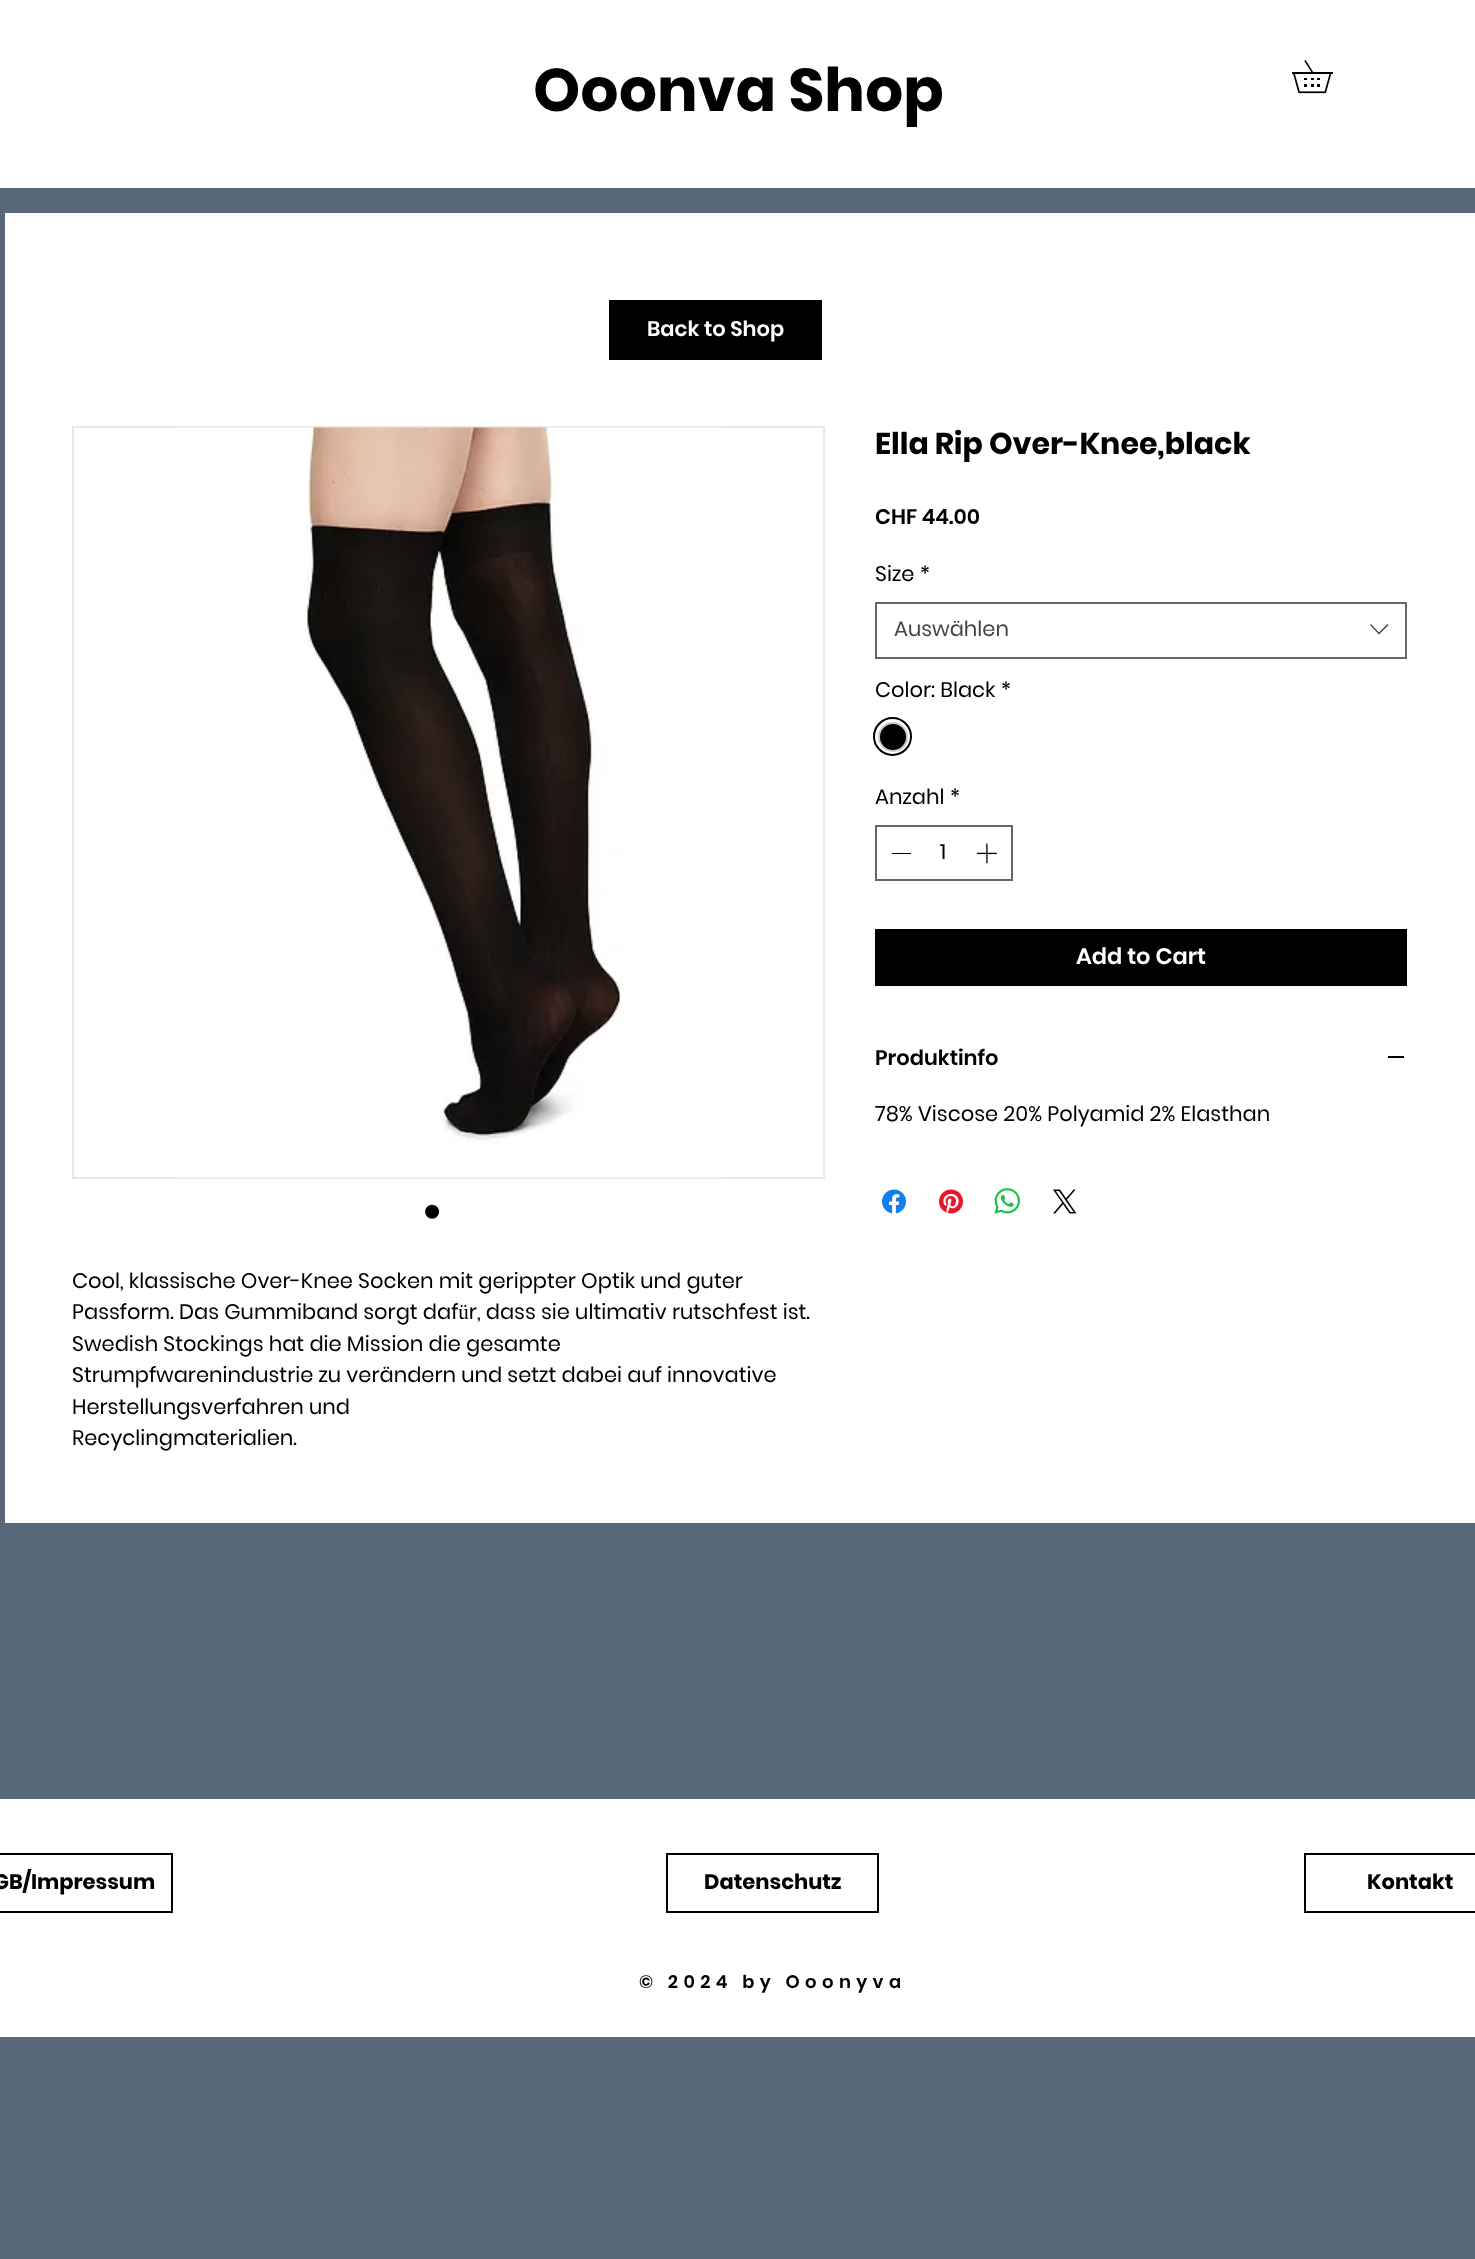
async function draw(canvas) {
  canvas.width = 1475
  canvas.height = 2259
  const ctx = canvas.getContext('2d')
  ctx.miterLimit = 4
  ctx.fontKerning = 'normal'
  async function loadImage(src) {
    const img = new Image()
    img.src = src
    await img.decode()
    return img
  }

  ctx.fillStyle = '#576979'
  ctx.fillRect(0, 0, 1475, 2259)
  ctx.fillStyle = '#fff'
  ctx.fillRect(0, 0, 1475, 188)
  ctx.font = 'bold 60px Poppins'
  ctx.fillStyle = '#000'
  ctx.fillText('Ooonva Shop', 533, 111)
  ctx.drawImage(await loadImage('image0.png'), 1292, 60, 41, 34)
  ctx.fillStyle = '#fff'
  ctx.fillRect(5, 213, 1470, 1310)
  ctx.fillStyle = '#000'
  ctx.fillRect(609, 300, 213, 60)
  ctx.font = '600 21px Poppins'
  ctx.fillStyle = '#fff'
  ctx.fillText('Back to Shop', 647, 336)
  ctx.font = 'bold 30px Poppins'
  ctx.fillStyle = '#000'
  ctx.fillText('Ella Rip Over-Knee,black', 875, 454)
  ctx.font = '600 21px Poppins'
  ctx.fillText('CHF 44.00', 875, 524)
  ctx.font = '21px Poppins'
  ctx.fillText('Size', 875, 581)
  ctx.fillText('*', 920, 581)
  ctx.strokeStyle = '#666'
  ctx.lineWidth = 2
  ctx.strokeRect(876, 603, 530, 55)
  ctx.fillStyle = '#444'
  ctx.fillText('Auswählen', 894, 636)
  ctx.beginPath()
  ctx.moveTo(1387.5, 624)
  ctx.lineTo(1388.5, 625)
  ctx.lineTo(1379, 634.5)
  ctx.lineTo(1370, 625)
  ctx.lineTo(1371, 624)
  ctx.lineTo(1379, 632.5)
  ctx.closePath()
  ctx.fill('evenodd')
  ctx.fillStyle = '#000'
  ctx.fillText('Color: Black', 875, 697)
  ctx.fillText('*', 1001, 697)
  ctx.beginPath()
  ctx.arc(892.5, 736.5, 18.5, 0, 2 * Math.PI)
  ctx.strokeStyle = '#000'
  ctx.stroke()
  ctx.beginPath()
  ctx.arc(893, 737, 14, 0, 2 * Math.PI)
  ctx.fill()
  ctx.strokeStyle = '#c9c9c9'
  ctx.stroke()
  ctx.fillText('Anzahl', 875, 804)
  ctx.fillText('*', 950, 804)
  ctx.strokeStyle = '#666'
  ctx.strokeRect(876, 826, 136, 54)
  ctx.fillRect(892, 853, 19, 1)
  ctx.fillText('1', 940, 859)
  ctx.drawImage(await loadImage('image1.png'), 977, 843, 20, 21)
  ctx.fillRect(875, 929, 532, 57)
  ctx.font = '600 22.5px Poppins'
  ctx.fillStyle = '#fff'
  ctx.fillText('Add to Cart', 1076, 964)
  ctx.font = '600 21px Poppins'
  ctx.fillStyle = '#000'
  ctx.fillText('Produktinfo', 875, 1065)
  ctx.fillRect(1388, 1056, 16, 2)
  ctx.font = '21px Poppins'
  ctx.fillText('78% Viscose 20% Polyamid 2% Elasthan', 875, 1121)
  ctx.drawImage(await loadImage('image2.png'), 882, 1189, 24, 25)
  ctx.drawImage(await loadImage('image3.png'), 939, 1189, 24, 25)
  ctx.drawImage(await loadImage('image4.png'), 994, 1188, 26, 26)
  ctx.drawImage(await loadImage('image5.png'), 1053, 1189, 24, 25)
  ctx.strokeStyle = '#e8e6e6'
  ctx.strokeRect(73, 427, 751, 751)
  ctx.drawImage(await loadImage('image6.png'), 175, 427, 547, 751)
  ctx.font = '52px Liberation Sans'
  ctx.fillText('•', 423, 1229)
  ctx.font = '21px Poppins'
  ctx.fillText('Cool, klassische Over-Knee Socken mit gerippter Optik und guter', 72, 1288)
  ctx.fillText('Passform. Das Gummiband sorgt dafür, dass sie ultimativ rutschfest ist.', 72, 1319)
  ctx.fillText('Swedish Stockings hat die Mission die gesamte', 72, 1351)
  ctx.fillText('Strumpfwarenindustrie zu verändern und setzt dabei auf innovative', 72, 1382)
  ctx.fillText('Herstellungsverfahren und', 72, 1414)
  ctx.fillText('Recyclingmaterialien.', 72, 1445)
  ctx.fillStyle = '#fff'
  ctx.fillRect(0, 1799, 1475, 238)
  ctx.strokeStyle = '#000'
  ctx.strokeRect(-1, 1854, 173, 58)
  ctx.font = 'bold 21px Poppins'
  ctx.fillStyle = '#000'
  ctx.fillText('GB/Impressum', -7, 1889)
  ctx.strokeRect(667, 1854, 211, 58)
  ctx.fillText('Datenschutz', 704, 1889)
  ctx.strokeRect(1305, 1854, 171, 58)
  ctx.fillText('Kontakt', 1367, 1889)
  ctx.letterSpacing = '5.4px'
  ctx.font = '600 18px Poppins'
  ctx.fillText('© 2024 by Ooonyva', 639, 1988)
}

draw(document.querySelector('canvas'))
